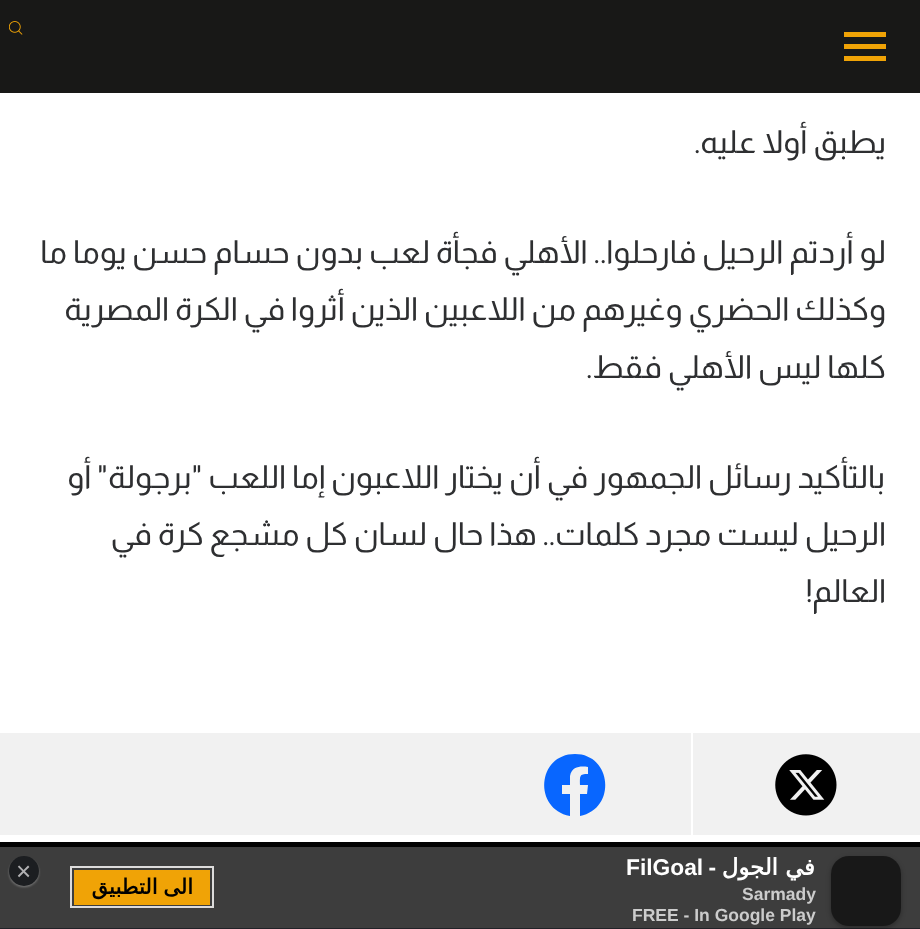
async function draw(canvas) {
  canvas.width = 920
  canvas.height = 929
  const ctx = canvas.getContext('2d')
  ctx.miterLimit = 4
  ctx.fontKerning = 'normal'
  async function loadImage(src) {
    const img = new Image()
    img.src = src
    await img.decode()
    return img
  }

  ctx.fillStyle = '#fff'
  ctx.fillRect(0, 0, 920, 929)
  ctx.fillStyle = '#181817'
  ctx.fillRect(0, 0, 920, 93)
  ctx.drawImage(await loadImage('image0.png'), 9, 21, 14, 14)
  ctx.fillStyle = '#f0a306'
  ctx.fillRect(844, 44, 42, 5)
  ctx.fillRect(844, 32, 42, 5)
  ctx.fillRect(844, 56, 42, 5)
  ctx.direction = 'rtl'
  ctx.font = '31.85px Almarai'
  ctx.fillStyle = '#2e2f31'
  ctx.fillText('يطبق أولا عليه.', 886, 153)
  ctx.fillText('لو أردتم الرحيل فارحلوا.. الأهلي فجأة لعب بدون حسام حسن يوما ما', 886, 263)
  ctx.fillText('وكذلك الحضري وغيرهم من اللاعبين الذين أثروا في الكرة المصرية', 886, 320)
  ctx.fillText('كلها ليس الأهلي فقط.', 886, 378)
  ctx.fillText('بالتأكيد رسائل الجمهور في أن يختار اللاعبون إما اللعب "برجولة" أو', 885, 488)
  ctx.fillText('الرحيل ليست مجرد كلمات.. هذا حال لسان كل مشجع كرة في', 886, 545)
  ctx.fillText('العالم!', 886, 602)
  ctx.fillStyle = '#f1f1f1'
  ctx.fillRect(0, 733, 920, 102)
  ctx.fillStyle = '#fff'
  ctx.fillRect(691, 733, 2, 109)
  ctx.drawImage(await loadImage('image1.png'), 775, 754, 62, 62)
  ctx.fillStyle = '#0866ff'
  ctx.beginPath()
  ctx.moveTo(575, 754)
  ctx.bezierCurveTo(537, 754, 533, 809, 570, 816)
  ctx.lineTo(570, 794)
  ctx.lineTo(562, 794)
  ctx.lineTo(562, 785)
  ctx.lineTo(570, 785)
  ctx.lineTo(570, 776)
  ctx.bezierCurveTo(572, 766, 581, 766, 588, 767)
  ctx.lineTo(588, 774)
  ctx.bezierCurveTo(579, 774, 580, 776, 580, 785)
  ctx.lineTo(588, 785)
  ctx.lineTo(587, 794)
  ctx.lineTo(580, 794)
  ctx.lineTo(580, 816)
  ctx.bezierCurveTo(617, 809, 612, 754, 575, 754)
  ctx.closePath()
  ctx.fill('evenodd')
  ctx.fillStyle = '#3d3d3d'
  ctx.fillRect(0, 847, 920, 81)
  ctx.fillStyle = '#000'
  ctx.fillRect(0, 842, 920, 5)
  ctx.fillStyle = '#212228'
  ctx.fillRect(0, 928, 920, 1)
  ctx.save()
  ctx.beginPath()
  ctx.moveTo(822, 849)
  ctx.lineTo(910, 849)
  ctx.lineTo(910, 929)
  ctx.lineTo(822, 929)
  ctx.closePath()
  ctx.moveTo(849, 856)
  ctx.lineTo(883, 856)
  ctx.bezierCurveTo(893, 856, 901, 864, 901, 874)
  ctx.lineTo(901, 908)
  ctx.bezierCurveTo(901, 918, 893, 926, 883, 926)
  ctx.lineTo(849, 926)
  ctx.bezierCurveTo(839, 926, 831, 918, 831, 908)
  ctx.lineTo(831, 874)
  ctx.bezierCurveTo(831, 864, 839, 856, 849, 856)
  ctx.closePath()
  ctx.clip('evenodd')
  ctx.fillStyle = '#0000004d'
  ctx.filter = 'blur(2.5px)'
  ctx.beginPath()
  ctx.roundRect(831, 858, 70, 70, 18)
  ctx.fill()
  ctx.filter = 'none'
  ctx.restore()
  ctx.fillStyle = '#00000099'
  ctx.beginPath()
  ctx.roundRect(831, 856, 70, 70, 18)
  ctx.fill()
  ctx.font = 'bold 22.75px DejaVu Sans'
  ctx.fillStyle = '#fff'
  ctx.fillText('في الجول', 815, 875)
  ctx.font = 'bold 22.75px Liberation Sans'
  ctx.fillText('-', 716, 875)
  ctx.direction = 'ltr'
  ctx.fillText('FilGoal', 626, 875)
  ctx.font = 'bold 17.5px Liberation Sans'
  ctx.fillStyle = '#ccc'
  ctx.fillText('Sarmady', 742, 900)
  ctx.fillText('FREE - In Google Play', 632, 921)
  ctx.fillStyle = '#ffffff4d'
  ctx.filter = 'blur(1px)'
  ctx.beginPath()
  ctx.roundRect(9, 858, 30, 29, 14.5)
  ctx.fill()
  ctx.filter = 'none'
  ctx.fillStyle = '#1c1e21'
  ctx.beginPath()
  ctx.arc(24, 871, 15, 0, 2 * Math.PI)
  ctx.fill()
  ctx.font = '26px Liberation Sans'
  ctx.fillStyle = '#b1b1b3'
  ctx.fillText('×', 16, 880)
  ctx.strokeStyle = '#dddcdc'
  ctx.lineWidth = 2
  ctx.strokeRect(71, 867, 142, 40)
  ctx.fillStyle = '#f0a306'
  ctx.fillRect(74, 870, 136, 35)
  ctx.wordSpacing = '-1px'
  ctx.direction = 'rtl'
  ctx.font = 'bold 21px DejaVu Sans'
  ctx.fillStyle = '#000'
  ctx.fillText('الى التطبيق', 193, 894)
}

draw(document.querySelector('canvas'))
